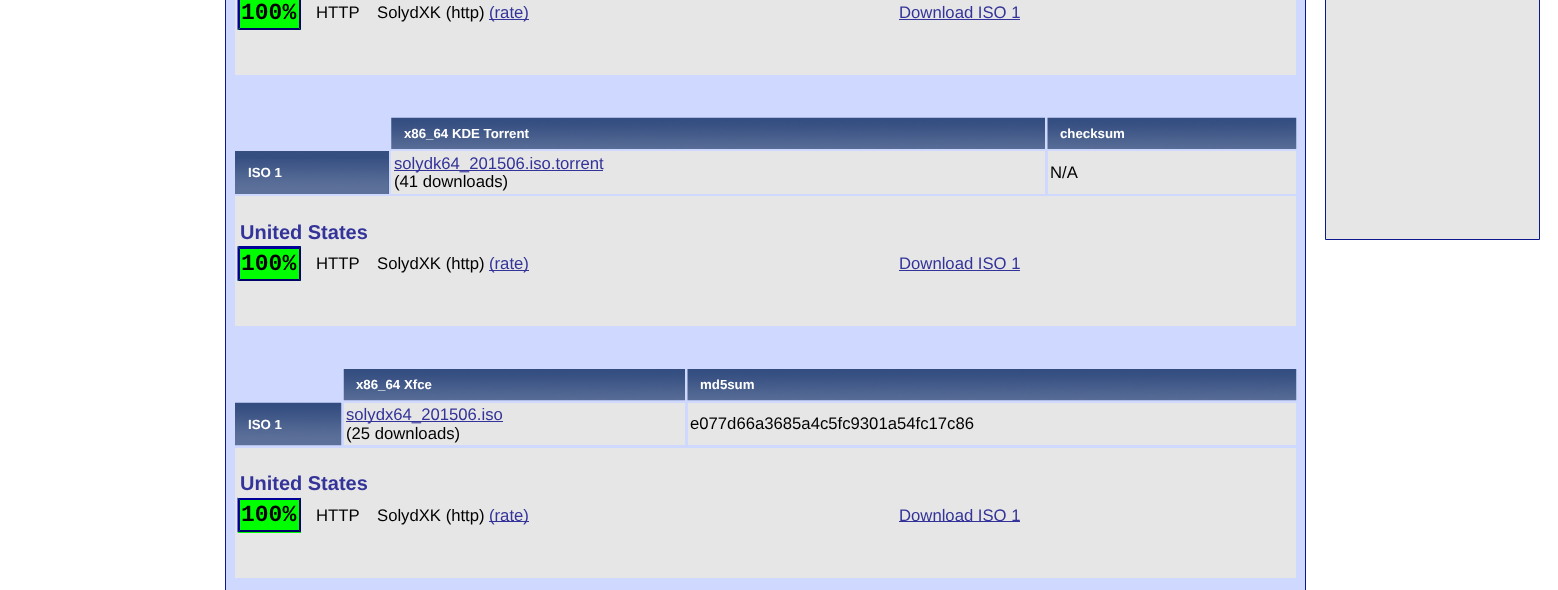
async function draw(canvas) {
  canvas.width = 1558
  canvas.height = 590
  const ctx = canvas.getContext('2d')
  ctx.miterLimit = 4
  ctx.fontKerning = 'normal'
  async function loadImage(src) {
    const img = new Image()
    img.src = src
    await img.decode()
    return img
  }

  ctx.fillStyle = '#fff'
  ctx.fillRect(0, 0, 1558, 590)
  ctx.fillStyle = '#cfd9ff'
  ctx.beginPath()
  ctx.rect(225.5, -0.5, 1080, 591)
  ctx.fill()
  ctx.strokeStyle = '#0b198c'
  ctx.stroke()
  ctx.fillStyle = '#e6e6e6'
  ctx.fillRect(235, 0, 1061, 75)
  ctx.fillStyle = '#0f0'
  ctx.fillRect(238, 0, 63, 30)
  ctx.fillStyle = '#006'
  ctx.beginPath()
  ctx.moveTo(301, -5)
  ctx.lineTo(301, 30)
  ctx.lineTo(299, 27.5)
  ctx.lineTo(299, -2.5)
  ctx.closePath()
  ctx.fill()
  ctx.beginPath()
  ctx.moveTo(301, 30)
  ctx.lineTo(238, 30)
  ctx.lineTo(240, 28)
  ctx.lineTo(299, 28)
  ctx.closePath()
  ctx.fill()
  ctx.fillStyle = '#009'
  ctx.beginPath()
  ctx.moveTo(237.5, 30)
  ctx.lineTo(237.5, -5)
  ctx.lineTo(240, -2.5)
  ctx.lineTo(240, 27.5)
  ctx.closePath()
  ctx.fill()
  ctx.font = 'bold 23px Liberation Mono'
  ctx.fillStyle = '#000'
  ctx.fillText('100%', 241, 19)
  ctx.font = '16.7px Liberation Sans'
  ctx.fillText('HTTP', 316, 18)
  ctx.fillText('SolydXK (http)', 377, 18)
  ctx.fillStyle = '#339'
  ctx.fillRect(489, 19, 40, 1)
  ctx.fillText('(rate)', 489, 18)
  ctx.fillText('Download ISO 1', 899, 18)
  ctx.fillRect(899, 19, 121, 1)
  ctx.drawImage(await loadImage('image0.png'), 391, 117, 654, 32)
  ctx.font = 'bold 13.25px Liberation Sans'
  ctx.fillStyle = '#fff'
  ctx.fillText('x86_64 KDE Torrent', 404, 138)
  ctx.drawImage(await loadImage('image1.png'), 1047, 117, 250, 32)
  ctx.fillText('checksum', 1060, 138)
  ctx.fillStyle = '#354f81'
  ctx.fillRect(235, 151, 154, 43)
  ctx.drawImage(await loadImage('image2.png'), 235, 159, 154, 35)
  ctx.fillStyle = '#fff'
  ctx.fillText('ISO 1', 248, 177)
  ctx.fillStyle = '#e6e6e6'
  ctx.fillRect(391, 151, 654, 43)
  ctx.fillStyle = '#339'
  ctx.fillRect(394, 170, 209, 1)
  ctx.font = '16.7px Liberation Sans'
  ctx.fillText('solydk64_201506.iso.torrent', 394, 169)
  ctx.fillStyle = '#000'
  ctx.fillText('(41 downloads)', 394, 187)
  ctx.fillStyle = '#e6e6e6'
  ctx.fillRect(1048, 151, 248, 43)
  ctx.fillStyle = '#000'
  ctx.fillText('N/A', 1050, 178)
  ctx.fillStyle = '#e6e6e6'
  ctx.fillRect(235, 196, 1061, 130)
  ctx.font = 'bold 20px Liberation Sans'
  ctx.fillStyle = '#339'
  ctx.fillText('United States', 240, 239)
  ctx.fillStyle = '#0f0'
  ctx.fillRect(238, 246, 63, 35)
  ctx.fillStyle = '#009'
  ctx.beginPath()
  ctx.moveTo(238, 246)
  ctx.lineTo(301, 246)
  ctx.lineTo(299, 249)
  ctx.lineTo(240, 249)
  ctx.closePath()
  ctx.fill()
  ctx.fillStyle = '#006'
  ctx.beginPath()
  ctx.moveTo(301, 246)
  ctx.lineTo(301, 281)
  ctx.lineTo(299, 279)
  ctx.lineTo(299, 249)
  ctx.closePath()
  ctx.fill()
  ctx.beginPath()
  ctx.moveTo(301, 281)
  ctx.lineTo(238, 281)
  ctx.lineTo(240, 279)
  ctx.lineTo(299, 279)
  ctx.closePath()
  ctx.fill()
  ctx.fillStyle = '#009'
  ctx.beginPath()
  ctx.moveTo(237.5, 281)
  ctx.lineTo(237.5, 246)
  ctx.lineTo(240, 249)
  ctx.lineTo(240, 279)
  ctx.closePath()
  ctx.fill()
  ctx.font = 'bold 23px Liberation Mono'
  ctx.fillStyle = '#000'
  ctx.fillText('100%', 241, 270)
  ctx.font = '16.7px Liberation Sans'
  ctx.fillText('HTTP', 316, 269)
  ctx.fillText('SolydXK (http)', 377, 269)
  ctx.fillStyle = '#339'
  ctx.fillRect(489, 270, 40, 1)
  ctx.fillText('(rate)', 489, 269)
  ctx.fillText('Download ISO 1', 899, 269)
  ctx.fillRect(899, 270, 121, 1)
  ctx.drawImage(await loadImage('image3.png'), 343, 369, 342, 32)
  ctx.font = 'bold 13.25px Liberation Sans'
  ctx.fillStyle = '#fff'
  ctx.fillText('x86_64 Xfce', 356, 389)
  ctx.drawImage(await loadImage('image4.png'), 687, 369, 610, 32)
  ctx.fillText('md5sum', 700, 389)
  ctx.drawImage(await loadImage('image5.png'), 235, 402, 107, 44)
  ctx.fillText('ISO 1', 248, 429)
  ctx.fillStyle = '#e6e6e6'
  ctx.fillRect(344, 403, 341, 42)
  ctx.fillStyle = '#339'
  ctx.fillRect(346, 421, 157, 1)
  ctx.font = '16.7px Liberation Sans'
  ctx.fillText('solydx64_201506.iso', 346, 420)
  ctx.fillStyle = '#000'
  ctx.fillText('(25 downloads)', 346, 439)
  ctx.fillStyle = '#e6e6e6'
  ctx.fillRect(688, 403, 608, 42)
  ctx.fillStyle = '#000'
  ctx.fillText('e077d66a3685a4c5fc9301a54fc17c86', 690, 429)
  ctx.fillStyle = '#e6e6e6'
  ctx.fillRect(235, 448, 1061, 130)
  ctx.font = 'bold 20px Liberation Sans'
  ctx.fillStyle = '#339'
  ctx.fillText('United States', 240, 490)
  ctx.fillStyle = '#0f0'
  ctx.fillRect(238, 498, 63, 35)
  ctx.fillStyle = '#009'
  ctx.beginPath()
  ctx.moveTo(238, 498)
  ctx.lineTo(301, 498)
  ctx.lineTo(299, 500)
  ctx.lineTo(240, 500)
  ctx.closePath()
  ctx.fill()
  ctx.fillStyle = '#006'
  ctx.beginPath()
  ctx.moveTo(301, 497.5)
  ctx.lineTo(301, 532.5)
  ctx.lineTo(299, 530)
  ctx.lineTo(299, 500)
  ctx.closePath()
  ctx.fill()
  ctx.beginPath()
  ctx.moveTo(301, 532)
  ctx.lineTo(238, 532)
  ctx.lineTo(240, 530)
  ctx.lineTo(299, 530)
  ctx.closePath()
  ctx.fill()
  ctx.fillStyle = '#009'
  ctx.beginPath()
  ctx.moveTo(237.5, 532.5)
  ctx.lineTo(237.5, 497.5)
  ctx.lineTo(240, 500)
  ctx.lineTo(240, 530)
  ctx.closePath()
  ctx.fill()
  ctx.font = 'bold 23px Liberation Mono'
  ctx.fillStyle = '#000'
  ctx.fillText('100%', 241, 521)
  ctx.font = '16.7px Liberation Sans'
  ctx.fillText('HTTP', 316, 521)
  ctx.fillText('SolydXK (http)', 377, 521)
  ctx.fillStyle = '#339'
  ctx.fillRect(489, 521, 40, 1)
  ctx.fillText('(rate)', 489, 521)
  ctx.fillRect(899, 521, 121, 1)
  ctx.fillText('Download ISO 1', 899, 521)
  ctx.fillStyle = '#e6e6e6'
  ctx.beginPath()
  ctx.rect(1325.5, -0.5, 214, 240)
  ctx.fill()
  ctx.stroke()
}

draw(document.querySelector('canvas'))
